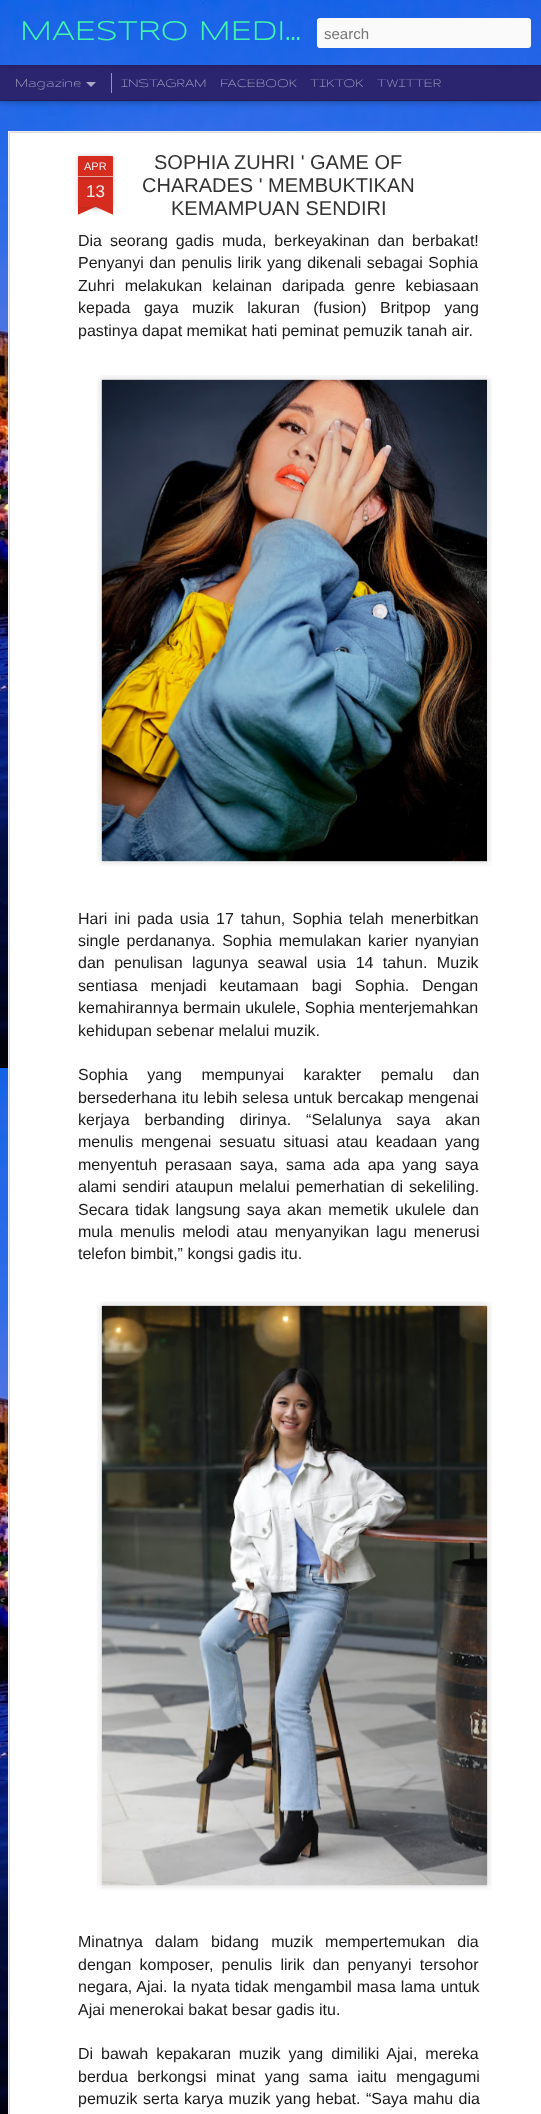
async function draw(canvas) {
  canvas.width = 541
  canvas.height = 2114
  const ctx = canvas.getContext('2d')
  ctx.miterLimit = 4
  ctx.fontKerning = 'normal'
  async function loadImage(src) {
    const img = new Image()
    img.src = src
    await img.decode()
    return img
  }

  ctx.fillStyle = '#2b256f'
  ctx.fillRect(0, 0, 541, 2114)
  ctx.drawImage(await loadImage('image1.png'), 0, 101, 541, 2013)
  ctx.fillStyle = '#00000080'
  ctx.filter = 'blur(4px)'
  ctx.beginPath()
  ctx.rect(0, 65, 541, 35)
  ctx.fill()
  ctx.filter = 'none'
  ctx.fillStyle = '#2b256f'
  ctx.fillRect(0, 65, 541, 35)
  ctx.fillStyle = '#9592b7'
  ctx.fillRect(111, 73, 1, 20)
  ctx.fillStyle = '#0000004d'
  ctx.filter = 'blur(2.5px)'
  ctx.beginPath()
  ctx.rect(0, 0, 541, 65)
  ctx.fill()
  ctx.filter = 'none'
  ctx.drawImage(await loadImage('image0.png'), 0, 0, 541, 65)
  ctx.font = '28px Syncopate'
  ctx.fillStyle = '#42f4b0'
  ctx.fillText('MAESTRO MEDI…', 20, 40)
  ctx.fillStyle = '#fafafa'
  ctx.beginPath()
  ctx.roundRect(317, 18, 214, 30, 3)
  ctx.fill()
  ctx.font = '15px Arimo'
  ctx.fillStyle = '#757575'
  ctx.fillText('search', 324, 39)
  ctx.font = '15px Gruppo'
  ctx.fillStyle = '#aaa8c5'
  ctx.fillText('Magazine', 15, 87)
  ctx.beginPath()
  ctx.moveTo(86, 82)
  ctx.lineTo(96, 82)
  ctx.lineTo(91, 87)
  ctx.closePath()
  ctx.fill()
  ctx.font = '14px Gruppo'
  ctx.fillText('INSTAGRAM', 121, 87)
  ctx.fillText('FACEBOOK', 220, 87)
  ctx.fillText('TIKTOK', 310, 87)
  ctx.fillText('TWITTER', 377, 87)
  ctx.fillStyle = '#fff'
  ctx.fillRect(8, 131, 533, 1983)
  ctx.drawImage(await loadImage('image2.png'), 8, 131, 533, 1983)
  ctx.fillStyle = '#00000033'
  ctx.filter = 'blur(2.5px)'
  ctx.beginPath()
  ctx.rect(78, 177, 35, 30)
  ctx.fill()
  ctx.filter = 'none'
  ctx.fillStyle = '#d52c1f'
  ctx.fillRect(78, 177, 35, 30)
  ctx.fillStyle = '#00000033'
  ctx.filter = 'blur(2.5px)'
  ctx.beginPath()
  ctx.roundRect(78, 156, 35, 21, 1)
  ctx.fill()
  ctx.filter = 'none'
  ctx.fillStyle = '#d52c1f'
  ctx.beginPath()
  ctx.roundRect(78, 156, 35, 21, [1, 1, 0, 0])
  ctx.fill()
  ctx.fillStyle = '#eeaba5'
  ctx.fillRect(78, 176, 35, 1)
  ctx.font = '11px Arimo'
  ctx.fillStyle = '#eee'
  ctx.fillText('APR', 84, 170)
  ctx.font = '17px Arimo'
  ctx.fillText('13', 86, 197)
  ctx.save()
  ctx.beginPath()
  ctx.rect(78, 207, 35, 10)
  ctx.clip()
  ctx.fillStyle = '#00000033'
  ctx.filter = 'blur(2.5px)'
  ctx.beginPath()
  ctx.rect(69, 197, 50, 10)
  ctx.fill()
  ctx.filter = 'none'
  ctx.restore()
  ctx.save()
  ctx.beginPath()
  ctx.rect(78, 207, 35, 10)
  ctx.clip()
  ctx.fillStyle = '#d52c1f'
  ctx.beginPath()
  ctx.moveTo(69, 208)
  ctx.lineTo(115, 187)
  ctx.lineTo(119, 196)
  ctx.lineTo(73, 217)
  ctx.closePath()
  ctx.fill()
  ctx.restore()
  ctx.save()
  ctx.beginPath()
  ctx.rect(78, 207, 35, 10)
  ctx.clip()
  ctx.fillStyle = '#00000033'
  ctx.filter = 'blur(2.5px)'
  ctx.beginPath()
  ctx.rect(72, 197, 50, 10)
  ctx.fill()
  ctx.filter = 'none'
  ctx.restore()
  ctx.save()
  ctx.beginPath()
  ctx.rect(78, 207, 35, 10)
  ctx.clip()
  ctx.fillStyle = '#d52c1f'
  ctx.beginPath()
  ctx.moveTo(76, 187)
  ctx.lineTo(122, 208)
  ctx.lineTo(118, 217)
  ctx.lineTo(72, 196)
  ctx.closePath()
  ctx.fill()
  ctx.restore()
  ctx.font = '20px Liberation Sans'
  ctx.fillStyle = '#333'
  ctx.fillText('SOPHIA ZUHRI \' GAME OF', 154, 169)
  ctx.fillText('CHARADES \' MEMBUKTIKAN', 142, 192)
  ctx.fillText('KEMAMPUAN SENDIRI', 171, 215)
  ctx.wordSpacing = '3.5px'
  ctx.font = '16px Liberation Sans'
  ctx.fillStyle = '#1a1a1a'
  ctx.fillText('Dia seorang gadis muda, berkeyakinan dan berbakat!', 78, 246)
  ctx.wordSpacing = '1px'
  ctx.fillText('Penyanyi dan penulis lirik yang dikenali sebagai Sophia', 78, 268)
  ctx.wordSpacing = '5.75px'
  ctx.fillText('Zuhri melakukan kelainan daripada genre kebiasaan', 78, 291)
  ctx.wordSpacing = '9px'
  ctx.fillText('kepada gaya muzik lakuran (fusion) Britpop yang', 78, 313)
  ctx.wordSpacing = '0px'
  ctx.fillText('pastinya dapat memikat hati peminat pemuzik tanah air.', 78, 336)
  ctx.drawImage(await loadImage('image3.png'), 97, 375, 395, 491)
  ctx.drawImage(await loadImage('image4.png'), 101, 379, 386, 483)
  ctx.wordSpacing = '2.5px'
  ctx.fillText('Hari ini pada usia 17 tahun, Sophia telah menerbitkan', 78, 924)
  ctx.wordSpacing = '2.25px'
  ctx.fillText('single perdananya. Sophia memulakan karier nyanyian', 78, 946)
  ctx.wordSpacing = '5px'
  ctx.fillText('dan penulisan lagunya seawal usia 14 tahun. Muzik', 78, 968)
  ctx.wordSpacing = '8.5px'
  ctx.fillText('sentiasa menjadi keutamaan bagi Sophia. Dengan', 78, 991)
  ctx.wordSpacing = '0px'
  ctx.fillText('kemahirannya bermain ukulele, Sophia menterjemahkan', 78, 1013)
  ctx.fillText('kehidupan sebenar melalui muzik.', 78, 1036)
  ctx.wordSpacing = '15px'
  ctx.fillText('Sophia yang mempunyai karakter pemalu dan', 78, 1080)
  ctx.wordSpacing = '0.5px'
  ctx.fillText('bersederhana itu lebih selesa untuk bercakap mengenai', 78, 1103)
  ctx.wordSpacing = '10.5px'
  ctx.fillText('kerjaya berbanding dirinya. “Selalunya saya akan', 78, 1125)
  ctx.wordSpacing = '3.5px'
  ctx.fillText('menulis mengenai sesuatu situasi atau keadaan yang', 78, 1147)
  ctx.fillText('menyentuh perasaan saya, sama ada apa yang saya', 78, 1170)
  ctx.wordSpacing = '1.5px'
  ctx.fillText('alami sendiri ataupun melalui pemerhatian di sekeliling.', 78, 1192)
  ctx.wordSpacing = '2px'
  ctx.fillText('Secara tidak langsung saya akan memetik ukulele dan', 78, 1215)
  ctx.wordSpacing = '2.75px'
  ctx.fillText('mula menulis melodi atau menyanyikan lagu menerusi', 78, 1237)
  ctx.wordSpacing = '0px'
  ctx.fillText('telefon bimbit,” kongsi gadis itu.', 78, 1259)
  ctx.drawImage(await loadImage('image5.png'), 97, 1301, 395, 589)
  ctx.drawImage(await loadImage('image6.png'), 101, 1305, 387, 581)
  ctx.wordSpacing = '7.75px'
  ctx.fillText('Minatnya dalam bidang muzik mempertemukan dia', 78, 1947)
  ctx.wordSpacing = '3.75px'
  ctx.fillText('dengan komposer, penulis lirik dan penyanyi tersohor', 78, 1970)
  ctx.wordSpacing = '0.5px'
  ctx.fillText('negara, Ajai. Ia nyata tidak mengambil masa lama untuk', 78, 1992)
  ctx.wordSpacing = '0px'
  ctx.fillText('Ajai menerokai bakat besar gadis itu.', 78, 2015)
  ctx.wordSpacing = '3.5px'
  ctx.fillText('Di bawah kepakaran muzik yang dimiliki Ajai, mereka', 78, 2059)
  ctx.wordSpacing = '5px'
  ctx.fillText('berdua berkongsi minat yang sama iaitu mengagumi', 78, 2082)
  ctx.wordSpacing = '1px'
  ctx.fillText('pemuzik serta karya muzik yang hebat. “Saya mahu dia', 78, 2104)
}

draw(document.querySelector('canvas'))
